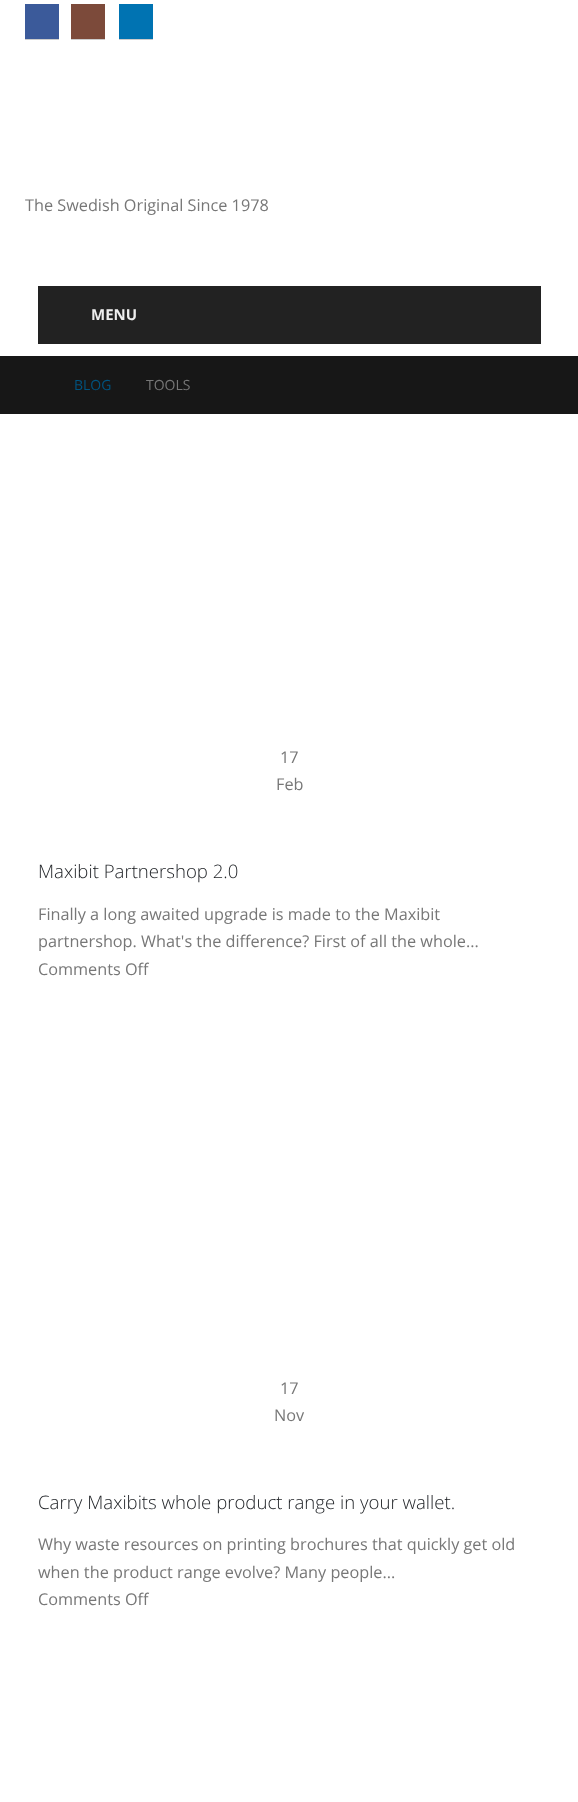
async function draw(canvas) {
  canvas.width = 578
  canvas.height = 1802
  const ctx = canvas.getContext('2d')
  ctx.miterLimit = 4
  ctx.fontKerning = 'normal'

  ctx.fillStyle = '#fff'
  ctx.fillRect(0, 0, 578, 1802)
  ctx.fillStyle = '#00000033'
  ctx.filter = 'blur(0.5px)'
  ctx.beginPath()
  ctx.rect(25, 5, 34, 35)
  ctx.fill()
  ctx.filter = 'none'
  ctx.fillStyle = '#3b5a9a'
  ctx.fillRect(25, 4, 34, 35)
  ctx.fillStyle = '#00000033'
  ctx.filter = 'blur(0.5px)'
  ctx.beginPath()
  ctx.rect(71, 5, 34, 35)
  ctx.fill()
  ctx.filter = 'none'
  ctx.fillStyle = '#7c4a3a'
  ctx.fillRect(71, 4, 34, 35)
  ctx.fillStyle = '#00000033'
  ctx.filter = 'blur(0.5px)'
  ctx.beginPath()
  ctx.rect(119, 5, 34, 35)
  ctx.fill()
  ctx.filter = 'none'
  ctx.fillStyle = '#0073b2'
  ctx.fillRect(119, 4, 34, 35)
  ctx.font = '16.25px Open Sans'
  ctx.fillStyle = '#777'
  ctx.fillText('The Swedish Original Since 1978', 25, 211)
  ctx.fillStyle = '#222'
  ctx.fillRect(38, 286, 503, 58)
  ctx.font = 'bold 15px Open Sans'
  ctx.fillStyle = '#eee'
  ctx.fillText('MENU', 91, 320)
  ctx.fillStyle = '#171717'
  ctx.fillRect(0, 356, 578, 58)
  ctx.font = '14px Open Sans'
  ctx.fillStyle = '#00537f'
  ctx.fillText('BLOG', 74, 390)
  ctx.fillStyle = '#777'
  ctx.fillText('TOOLS', 146, 390)
  ctx.font = '16.25px Open Sans'
  ctx.fillText('17', 280, 763)
  ctx.fillText('Feb', 276, 790)
  ctx.font = '300 18.6px Open Sans'
  ctx.fillStyle = '#222529'
  ctx.fillText('Maxibit Partnershop 2.0', 38, 878)
  ctx.font = '16.25px Open Sans'
  ctx.fillStyle = '#777'
  ctx.fillText('Finally a long awaited upgrade is made to the Maxibit', 38, 920)
  ctx.fillText('partnershop. What\'s the difference? First of all the whole...', 38, 947)
  ctx.fillText('Comments Off', 38, 975)
  ctx.fillText('17', 280, 1394)
  ctx.fillText('Nov', 274, 1421)
  ctx.font = '300 18.6px Open Sans'
  ctx.fillStyle = '#222529'
  ctx.fillText('Carry Maxibits whole product range in your wallet.', 38, 1509)
  ctx.font = '16.25px Open Sans'
  ctx.fillStyle = '#777'
  ctx.fillText('Why waste resources on printing brochures that quickly get old', 38, 1550)
  ctx.fillText('when the product range evolve? Many people...', 38, 1578)
  ctx.fillText('Comments Off', 38, 1605)
}

draw(document.querySelector('canvas'))
